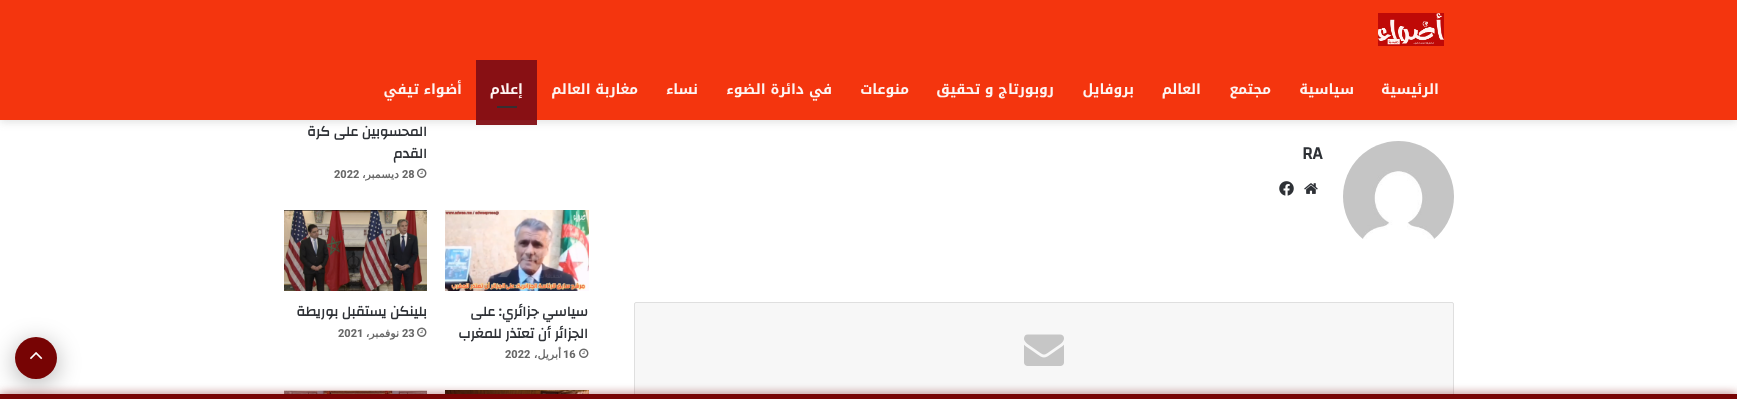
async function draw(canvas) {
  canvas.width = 1737
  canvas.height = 399
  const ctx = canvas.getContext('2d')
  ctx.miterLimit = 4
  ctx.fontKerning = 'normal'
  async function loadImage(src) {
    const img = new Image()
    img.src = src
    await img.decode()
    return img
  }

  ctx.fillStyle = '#fff'
  ctx.fillRect(0, 0, 1737, 399)
  ctx.fillStyle = '#63636333'
  ctx.filter = 'blur(4px)'
  ctx.beginPath()
  ctx.rect(0, 2, 1737, 120)
  ctx.fill()
  ctx.filter = 'none'
  ctx.fillStyle = '#f4350e'
  ctx.fillRect(0, 0, 1737, 120)
  ctx.drawImage(await loadImage('image0.png'), 1378, 13, 66, 33)
  ctx.direction = 'rtl'
  ctx.font = 'bold 14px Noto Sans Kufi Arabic'
  ctx.fillStyle = '#fef5f3'
  ctx.fillText('الرئيسية', 1439, 94)
  ctx.fillText('سياسية', 1354, 94)
  ctx.fillText('مجتمع', 1271, 94)
  ctx.fillText('العالم', 1201, 94)
  ctx.fillText('بروفايل', 1134, 94)
  ctx.fillText('روبورتاج و تحقيق', 1054, 94)
  ctx.fillText('منوعات', 909, 94)
  ctx.fillText('في دائرة الضوء', 832, 94)
  ctx.fillText('نساء', 698, 94)
  ctx.fillText('مغاربة العالم', 638, 94)
  ctx.fillStyle = '#820e14f2'
  ctx.fillRect(476, 120, 61, 5)
  ctx.fillStyle = '#881014'
  ctx.fillRect(476, 60, 61, 60)
  ctx.fillStyle = '#fef5f3'
  ctx.fillText('إعلام', 523, 94)
  ctx.fillStyle = '#362f32'
  ctx.fillRect(497, 106, 20, 2)
  ctx.fillStyle = '#fef5f3'
  ctx.fillText('أضواء تيفي', 462, 94)
  ctx.drawImage(await loadImage('image1.png'), 1343, 141, 111, 98)
  ctx.direction = 'ltr'
  ctx.font = 'bold 18px Changa'
  ctx.fillStyle = '#2e3136'
  ctx.fillText('RA', 1302, 159)
  ctx.drawImage(await loadImage('image2.png'), 1304, 183, 14, 11)
  ctx.drawImage(await loadImage('image3.png'), 1279, 181, 15, 15)
  ctx.fillStyle = '#f7f7f7'
  ctx.beginPath()
  ctx.roundRect(634.5, 302.5, 819, 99, 1.5)
  ctx.fill()
  ctx.strokeStyle = '#dfdfdf'
  ctx.stroke()
  ctx.drawImage(await loadImage('image4.png'), 1024, 334, 40, 32)
  ctx.direction = 'rtl'
  ctx.font = 'bold 14px Changa'
  ctx.fillStyle = '#2e3136'
  ctx.fillText('المحسوبين على كرة', 427, 136)
  ctx.fillText('القدم', 427, 158)
  ctx.drawImage(await loadImage('image5.png'), 417, 168, 10, 10)
  ctx.direction = 'ltr'
  ctx.font = '800 11px Roboto'
  ctx.fillStyle = '#686868'
  ctx.fillText('28', 402, 178)
  ctx.direction = 'rtl'
  ctx.font = 'bold 11px DejaVu Sans'
  ctx.fillText('ديسمبر،', 399, 178)
  ctx.direction = 'ltr'
  ctx.font = '800 11px Roboto'
  ctx.fillText('2022', 334, 178)
  ctx.drawImage(await loadImage('image6.png'), 445, 210, 144, 81)
  ctx.direction = 'rtl'
  ctx.font = 'bold 14px Changa'
  ctx.fillStyle = '#2e3136'
  ctx.fillText('سياسي جزائري: على', 588, 316)
  ctx.fillText('الجزائر أن تعتذر للمغرب', 588, 338)
  ctx.drawImage(await loadImage('image5.png'), 579, 348, 10, 10)
  ctx.direction = 'ltr'
  ctx.font = '800 11px Roboto'
  ctx.fillStyle = '#686868'
  ctx.fillText('16', 563, 358)
  ctx.direction = 'rtl'
  ctx.font = 'bold 11px DejaVu Sans'
  ctx.fillText('أبريل،', 561, 358)
  ctx.direction = 'ltr'
  ctx.font = '800 11px Roboto'
  ctx.fillText('2022', 505, 358)
  ctx.drawImage(await loadImage('image7.png'), 284, 210, 143, 81)
  ctx.direction = 'rtl'
  ctx.font = 'bold 14px Changa'
  ctx.fillStyle = '#2e3136'
  ctx.fillText('بلينكن يستقبل بوريطة', 427, 316)
  ctx.drawImage(await loadImage('image5.png'), 417, 327, 10, 10)
  ctx.direction = 'ltr'
  ctx.font = '800 11px Roboto'
  ctx.fillStyle = '#686868'
  ctx.fillText('23', 402, 337)
  ctx.direction = 'rtl'
  ctx.font = 'bold 11px DejaVu Sans'
  ctx.fillText('نوفمبر،', 399, 337)
  ctx.direction = 'ltr'
  ctx.font = '800 11px Roboto'
  ctx.fillText('2021', 338, 337)
  ctx.drawImage(await loadImage('image8.png'), 445, 390, 144, 4)
  ctx.drawImage(await loadImage('image9.png'), 284, 390, 143, 4)
  ctx.fillStyle = '#0000004d'
  ctx.filter = 'blur(12.5px)'
  ctx.beginPath()
  ctx.roundRect(15, 342, 42, 42, 21)
  ctx.fill()
  ctx.filter = 'none'
  ctx.fillStyle = '#770404'
  ctx.beginPath()
  ctx.arc(36, 358, 21, 0, 2 * Math.PI)
  ctx.fill()
  ctx.drawImage(await loadImage('image10.png'), 30, 352, 13, 8)
  ctx.fillStyle = '#770404b3'
  ctx.filter = 'blur(5px)'
  ctx.beginPath()
  ctx.rect(0, 394, 1737, 5)
  ctx.fill()
  ctx.filter = 'none'
  ctx.fillStyle = '#770404'
  ctx.fillRect(0, 394, 1737, 5)
}

draw(document.querySelector('canvas'))
